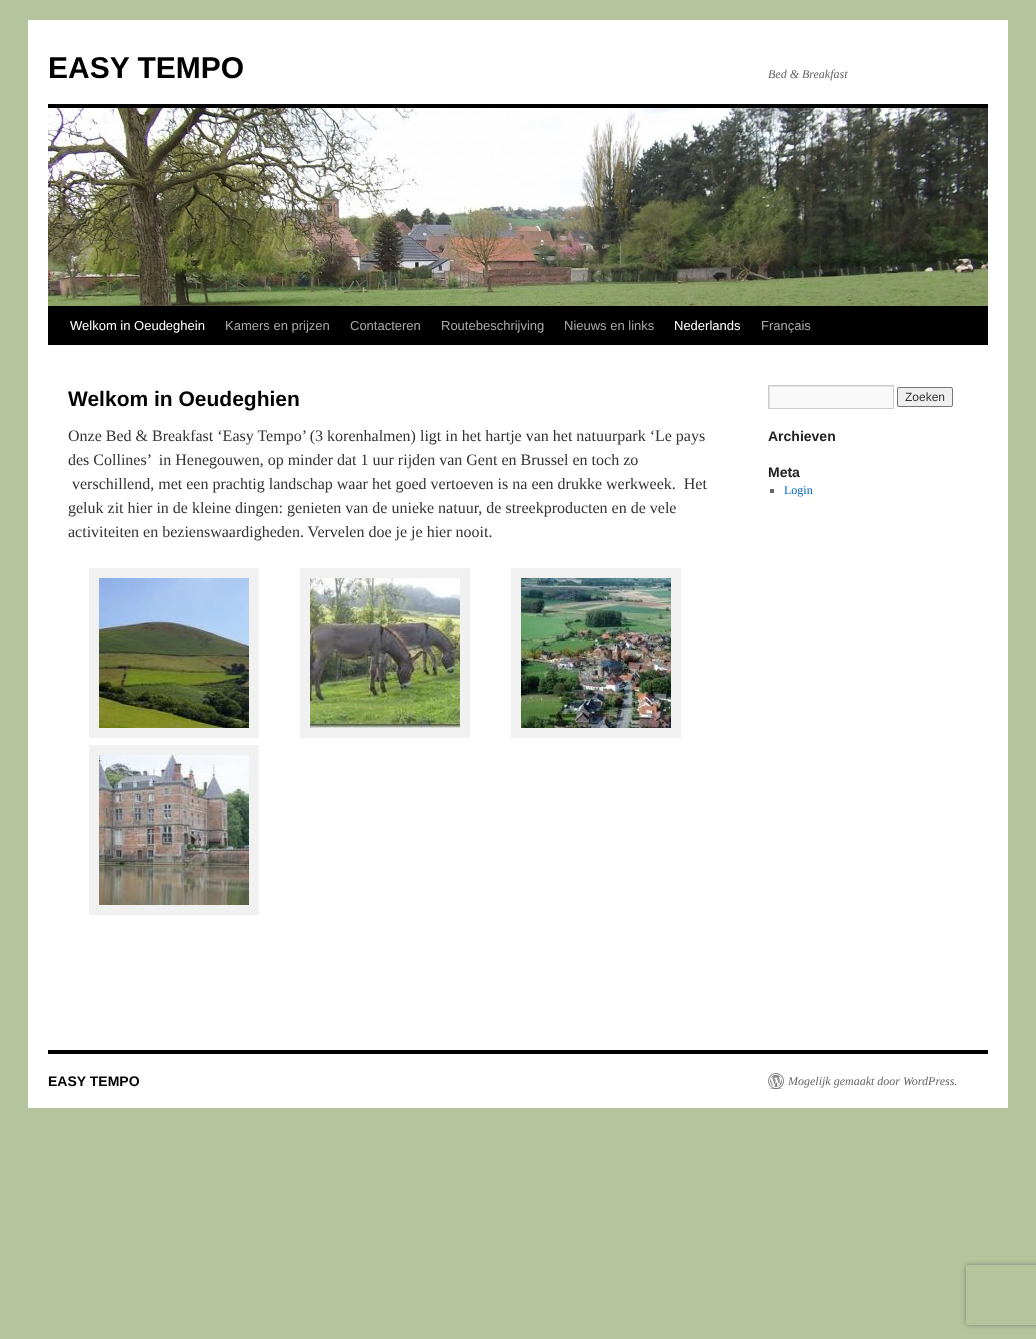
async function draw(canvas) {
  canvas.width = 1036
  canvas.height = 1339
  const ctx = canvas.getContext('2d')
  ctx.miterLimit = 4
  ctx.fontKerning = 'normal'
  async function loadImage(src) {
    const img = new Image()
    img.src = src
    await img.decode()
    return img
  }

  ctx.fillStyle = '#b5c49c'
  ctx.fillRect(0, 0, 1036, 1339)
  ctx.fillStyle = '#fff'
  ctx.fillRect(28, 20, 980, 1088)
  ctx.font = 'bold 30px Liberation Sans'
  ctx.fillStyle = '#000'
  ctx.fillText('EASY TEMPO', 48, 78)
  ctx.font = 'italic 12px Liberation Serif'
  ctx.fillStyle = '#666'
  ctx.fillText('Bed & Breakfast', 768, 78)
  ctx.fillStyle = '#000'
  ctx.fillRect(48, 104, 940, 4)
  ctx.fillRect(48, 306, 940, 39)
  ctx.drawImage(await loadImage('image0.png'), 48, 108, 940, 198)
  ctx.font = '13px Liberation Sans'
  ctx.fillStyle = '#fff'
  ctx.fillText('Welkom in Oeudeghein', 70, 330)
  ctx.fillStyle = '#aaa'
  ctx.fillText('Kamers en prijzen', 225, 330)
  ctx.fillText('Contacteren', 350, 330)
  ctx.fillText('Routebeschrijving', 441, 330)
  ctx.fillText('Nieuws en links', 564, 330)
  ctx.fillStyle = '#fff'
  ctx.fillText('Nederlands', 674, 330)
  ctx.fillStyle = '#aaa'
  ctx.fillText('Français', 761, 330)
  ctx.font = 'bold 21px Liberation Sans'
  ctx.fillStyle = '#000'
  ctx.fillText('Welkom in Oeudeghien', 68, 406)
  ctx.font = '16px Liberation Serif'
  ctx.fillStyle = '#333'
  ctx.fillText('Onze Bed & Breakfast ‘Easy Tempo’ (3 korenhalmen) ligt in het hartje van het natuurpark ‘Le pays', 68, 441)
  ctx.fillText('des Collines’  in Henegouwen, op minder dat 1 uur rijden van Gent en Brussel en toch zo', 68, 465)
  ctx.fillText('verschillend, met een prachtig landschap waar het goed vertoeven is na een drukke werkweek.  Het', 72, 489)
  ctx.fillText('geluk zit hier in de kleine dingen: genieten van de unieke natuur, de streekproducten en de vele', 68, 513)
  ctx.fillText('activiteiten en bezienswaardigheden. Vervelen doe je je hier nooit.', 68, 537)
  ctx.strokeStyle = '#f1f1f1'
  ctx.lineWidth = 10
  ctx.strokeRect(94, 573, 160, 160)
  ctx.drawImage(await loadImage('image1.png'), 99, 578, 150, 150)
  ctx.strokeRect(305, 573, 160, 160)
  ctx.drawImage(await loadImage('image2.png'), 310, 578, 150, 150)
  ctx.strokeRect(516, 573, 160, 160)
  ctx.drawImage(await loadImage('image3.png'), 521, 578, 150, 150)
  ctx.strokeRect(94, 750, 160, 160)
  ctx.drawImage(await loadImage('image4.png'), 99, 755, 150, 150)
  ctx.fillStyle = '#f9f9f9'
  ctx.fillRect(770, 387, 123, 21)
  ctx.save()
  ctx.beginPath()
  ctx.rect(769, 386, 124, 22)
  ctx.clip()
  ctx.fillStyle = '#e0e0e0'
  ctx.beginPath()
  ctx.moveTo(670, 287)
  ctx.lineTo(992, 287)
  ctx.lineTo(992, 507)
  ctx.lineTo(670, 507)
  ctx.closePath()
  ctx.moveTo(770, 387)
  ctx.lineTo(894, 387)
  ctx.lineTo(894, 409)
  ctx.lineTo(770, 409)
  ctx.closePath()
  ctx.fill('evenodd')
  ctx.restore()
  ctx.strokeStyle = '#ccc'
  ctx.lineWidth = 1
  ctx.strokeRect(768.5, 385.5, 125, 23)
  ctx.fillStyle = '#efefef'
  ctx.beginPath()
  ctx.roundRect(897.5, 387.5, 55, 19, 1.5)
  ctx.fill()
  ctx.strokeStyle = '#767676'
  ctx.stroke()
  ctx.font = '12px Liberation Sans'
  ctx.fillStyle = '#333'
  ctx.fillText('Zoeken', 905, 401)
  ctx.font = 'bold 14px Liberation Sans'
  ctx.fillStyle = '#222'
  ctx.fillText('Archieven', 768, 441)
  ctx.fillText('Meta', 768, 477)
  ctx.fillStyle = '#666'
  ctx.fillRect(770, 489, 4, 4)
  ctx.font = '12px Liberation Serif'
  ctx.fillStyle = '#06c'
  ctx.fillText('Login', 784, 494)
  ctx.fillStyle = '#000'
  ctx.fillRect(48, 1050, 940, 4)
  ctx.font = 'bold 14px Liberation Sans'
  ctx.fillText('EASY TEMPO', 48, 1086)
  ctx.drawImage(await loadImage('image5.png'), 768, 1073, 16, 16)
  ctx.font = 'italic 12px Liberation Serif'
  ctx.fillStyle = '#666'
  ctx.fillText('Mogelijk gemaakt door WordPress.', 788, 1085)
  ctx.save()
  ctx.beginPath()
  ctx.moveTo(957, 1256)
  ctx.lineTo(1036, 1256)
  ctx.lineTo(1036, 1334)
  ctx.lineTo(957, 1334)
  ctx.closePath()
  ctx.moveTo(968, 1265)
  ctx.lineTo(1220, 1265)
  ctx.bezierCurveTo(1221, 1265, 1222, 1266, 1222, 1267)
  ctx.lineTo(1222, 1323)
  ctx.bezierCurveTo(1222, 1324, 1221, 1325, 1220, 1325)
  ctx.lineTo(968, 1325)
  ctx.bezierCurveTo(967, 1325, 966, 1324, 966, 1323)
  ctx.lineTo(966, 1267)
  ctx.bezierCurveTo(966, 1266, 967, 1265, 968, 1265)
  ctx.closePath()
  ctx.clip('evenodd')
  ctx.fillStyle = '#808080'
  ctx.filter = 'blur(2.5px)'
  ctx.beginPath()
  ctx.roundRect(966, 1265, 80, 60, 2)
  ctx.fill()
  ctx.filter = 'none'
  ctx.restore()
}

draw(document.querySelector('canvas'))
